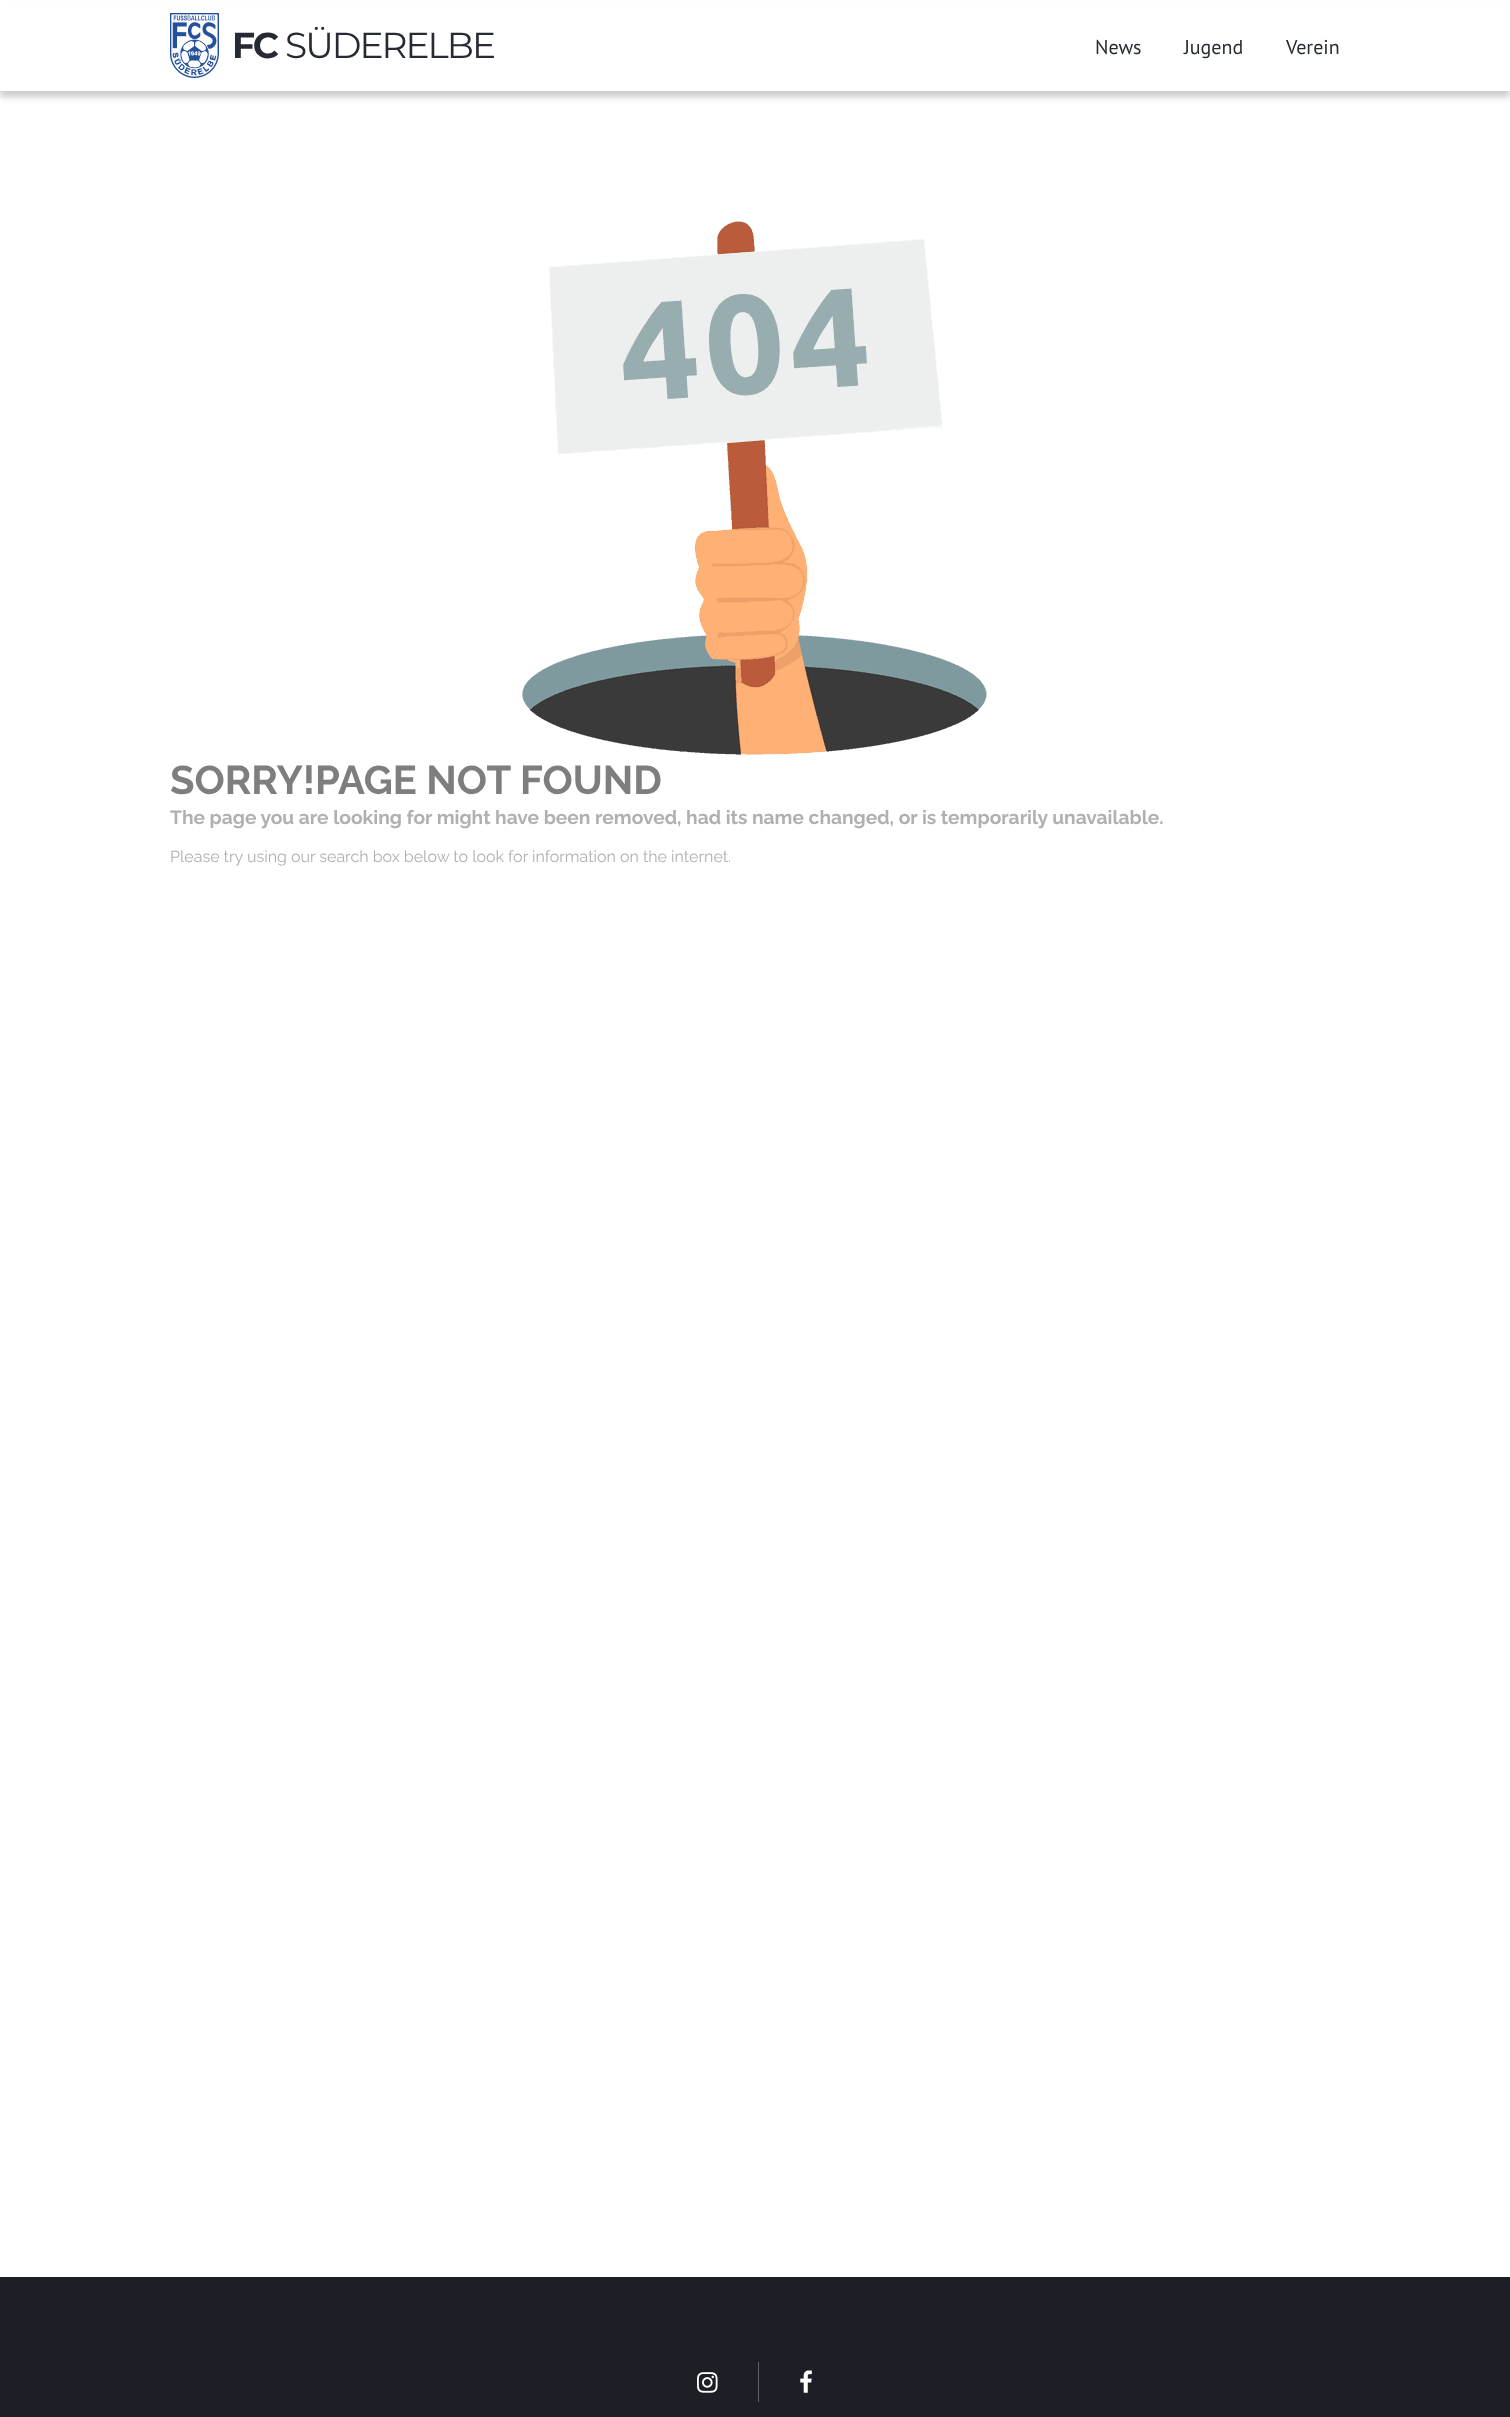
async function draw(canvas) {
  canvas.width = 1510
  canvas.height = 2417
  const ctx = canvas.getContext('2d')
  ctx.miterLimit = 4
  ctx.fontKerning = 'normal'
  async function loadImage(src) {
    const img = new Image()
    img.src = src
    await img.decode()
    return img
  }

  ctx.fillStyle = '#fff'
  ctx.fillRect(0, 0, 1510, 2417)
  ctx.fillStyle = '#00000033'
  ctx.filter = 'blur(3px)'
  ctx.beginPath()
  ctx.rect(0, 6, 1510, 91)
  ctx.fill()
  ctx.filter = 'none'
  ctx.fillStyle = '#fff'
  ctx.fillRect(0, 1, 1510, 90)
  ctx.drawImage(await loadImage('image0.png'), 170, 13, 49, 65)
  ctx.letterSpacing = '-2px'
  ctx.font = 'bold 36px Montserrat'
  ctx.fillStyle = '#262a33'
  ctx.fillText('FC', 232, 58)
  ctx.font = '36px Montserrat'
  ctx.fillText('SÜDERELBE', 285, 58)
  ctx.letterSpacing = '0px'
  ctx.font = '20px PT Sans'
  ctx.fillText('News', 1095, 54)
  ctx.fillText('Jugend', 1184, 54)
  ctx.fillText('Verein', 1286, 54)
  ctx.drawImage(await loadImage('image1.png'), 522, 221, 465, 534)
  ctx.font = 'bold 40px Raleway'
  ctx.fillStyle = '#7e7e7e'
  ctx.fillText('SORRY!PAGE NOT', 170, 794)
  ctx.fillText('FOUND', 520, 794)
  ctx.font = 'bold 19.2px Raleway'
  ctx.fillStyle = '#b0b0b0'
  ctx.fillText('The page you are looking for might have been removed, had its name changed, or is temporarily unavailable.', 170, 824)
  ctx.font = '16px Raleway'
  ctx.fillText('Please try using our search box below to look for information on the internet.', 170, 862)
  ctx.fillStyle = '#1c1f25'
  ctx.fillRect(0, 2277, 1510, 140)
  ctx.drawImage(await loadImage('image2.png'), 697, 2372, 21, 21)
  ctx.fillStyle = '#606266'
  ctx.fillRect(758, 2362, 1, 40)
  ctx.drawImage(await loadImage('image3.png'), 800, 2370, 12, 23)
}

draw(document.querySelector('canvas'))
